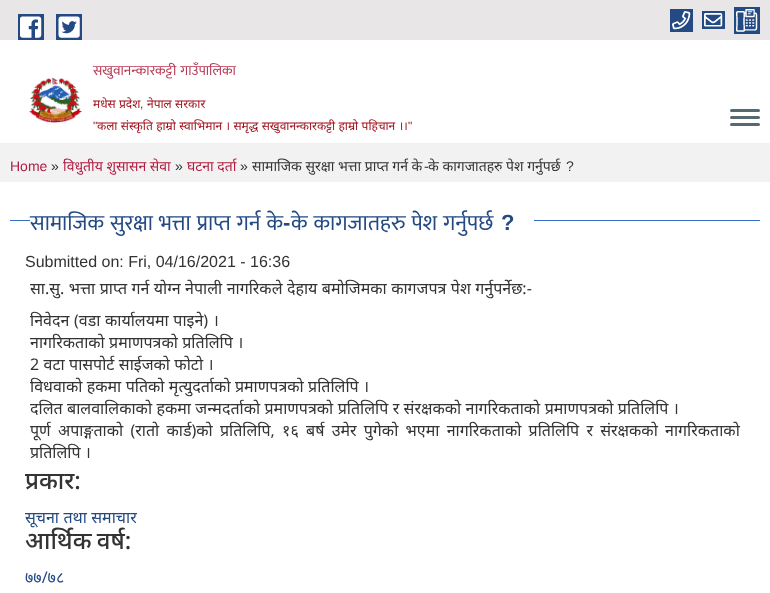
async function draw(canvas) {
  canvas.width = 770
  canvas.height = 593
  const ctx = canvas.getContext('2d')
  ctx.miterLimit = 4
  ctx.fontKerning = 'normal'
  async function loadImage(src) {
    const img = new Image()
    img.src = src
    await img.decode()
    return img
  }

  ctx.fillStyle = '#fff'
  ctx.fillRect(0, 0, 770, 593)
  ctx.fillStyle = '#e8e6e6'
  ctx.fillRect(0, 0, 770, 40)
  ctx.fillStyle = '#234a83'
  ctx.fillRect(18, 14, 26, 26)
  ctx.fillRect(56, 14, 26, 26)
  ctx.drawImage(await loadImage('image0.png'), 20, 16, 22, 22)
  ctx.drawImage(await loadImage('image1.png'), 58, 16, 22, 22)
  ctx.fillRect(670, 9, 23, 23)
  ctx.fillRect(734, 7, 26, 27)
  ctx.drawImage(await loadImage('image2.png'), 672, 11, 19, 19)
  ctx.fillRect(702, 11, 23, 18)
  ctx.drawImage(await loadImage('image3.png'), 736, 9, 22, 23)
  ctx.drawImage(await loadImage('image4.png'), 704, 13, 19, 14)
  ctx.drawImage(await loadImage('image5.png'), 29, 77, 54, 46)
  ctx.wordSpacing = '1px'
  ctx.font = '14px Mukta'
  ctx.fillStyle = '#b83955'
  ctx.fillText('सखुवानन्कारकट्टी गाउँपालिका', 93, 75)
  ctx.wordSpacing = '0.25px'
  ctx.font = '12px Noto Sans'
  ctx.fillStyle = '#9e0c18'
  ctx.fillText('मधेस प्रदेश', 93, 108)
  ctx.wordSpacing = '0px'
  ctx.font = '12px Liberation Sans'
  ctx.fillText(',', 140, 108)
  ctx.wordSpacing = '0.25px'
  ctx.font = '12px Noto Sans'
  ctx.fillText('नेपाल सरकार', 147, 108)
  ctx.wordSpacing = '0px'
  ctx.font = '12px Liberation Sans'
  ctx.fillText('"', 93, 130)
  ctx.wordSpacing = '0.25px'
  ctx.font = '12px Noto Sans'
  ctx.fillText('कला संस्कृति हाम्रो स्वाभिमान । समृद्ध सखुवानन्कारकट्टी हाम्रो पहिचान ।।', 97, 130)
  ctx.wordSpacing = '0px'
  ctx.font = '12px Liberation Sans'
  ctx.fillText('"', 408, 130)
  ctx.fillStyle = '#566973'
  ctx.beginPath()
  ctx.roundRect(730, 109, 30, 3, 1.5)
  ctx.fill()
  ctx.beginPath()
  ctx.roundRect(730, 116, 30, 3, 1.5)
  ctx.fill()
  ctx.beginPath()
  ctx.roundRect(730, 123, 30, 3, 1.5)
  ctx.fill()
  ctx.fillStyle = '#f2f2f2'
  ctx.fillRect(0, 143, 770, 39)
  ctx.font = '14px Liberation Sans'
  ctx.fillStyle = '#b21c42'
  ctx.fillText('Home', 10, 171)
  ctx.fillStyle = '#333'
  ctx.fillText('»', 51, 171)
  ctx.font = '14px Noto Sans'
  ctx.fillStyle = '#b21c42'
  ctx.fillText('विधुतीय शुसासन सेवा', 63, 171)
  ctx.font = '14px Liberation Sans'
  ctx.fillStyle = '#333'
  ctx.fillText('»', 175, 171)
  ctx.font = '14px Noto Sans'
  ctx.fillStyle = '#b21c42'
  ctx.fillText('घटना दर्ता', 187, 171)
  ctx.font = '14px Liberation Sans'
  ctx.fillStyle = '#333'
  ctx.fillText('»', 240, 171)
  ctx.font = '14px Noto Sans'
  ctx.fillText('सामाजिक सुरक्षा भत्ता प्राप्त गर्न के', 252, 171)
  ctx.font = '14px Liberation Sans'
  ctx.fillText('-', 424, 171)
  ctx.font = '14px Noto Sans'
  ctx.fillText('के कागजातहरु पेश गर्नुपर्छ', 428, 171)
  ctx.font = '14px Liberation Sans'
  ctx.fillText('?', 566, 171)
  ctx.fillStyle = '#376fc2'
  ctx.fillRect(10, 220, 750, 1)
  ctx.fillStyle = '#fff'
  ctx.fillRect(30, 220, 504, 1)
  ctx.wordSpacing = '1px'
  ctx.font = '22px Mukta'
  ctx.fillStyle = '#234a83'
  ctx.fillText('सामाजिक सुरक्षा भत्ता प्राप्त गर्न के', 30, 230)
  ctx.wordSpacing = '0px'
  ctx.font = 'bold 22px Liberation Sans'
  ctx.fillText('-', 283, 230)
  ctx.wordSpacing = '1px'
  ctx.font = '22px Mukta'
  ctx.fillText('के कागजातहरु पेश गर्नुपर्छ', 291, 230)
  ctx.wordSpacing = '0px'
  ctx.font = 'bold 22px Liberation Sans'
  ctx.fillText('?', 501, 230)
  ctx.font = '16px Liberation Sans'
  ctx.fillStyle = '#333'
  ctx.fillText('Submitted on: Fri, 04/16/2021 - 16:36', 25, 267)
  ctx.wordSpacing = '0.3px'
  ctx.font = '16px Noto Sans'
  ctx.fillText('सा.सु. भत्ता प्राप्त गर्न योग्न नेपाली नागरिकले देहाय बमोजिमका कागजपत्र पेश गर्नुपर्नेछ:-', 30, 294)
  ctx.wordSpacing = '0.5px'
  ctx.fillText('निवेदन (वडा कार्यालयमा पाइने) ।', 30, 326)
  ctx.wordSpacing = '0.25px'
  ctx.fillText('नागरिकताको प्रमाणपत्रको प्रतिलिपि ।', 30, 348)
  ctx.fillText('2 वटा पासपोर्ट साईजको फोटो ।', 30, 370)
  ctx.fillText('विधवाको हकमा पतिको मृत्युदर्ताको प्रमाणपत्रको प्रतिलिपि ।', 30, 392)
  ctx.fillText('दलित बालवालिकाको हकमा जन्मदर्ताको प्रमाणपत्रको प्रतिलिपि र संरक्षकको नागरिकताको प्रमाणपत्रको प्रतिलिपि ।', 30, 414)
  ctx.wordSpacing = '3.1px'
  ctx.fillText('पूर्ण अपाङ्गताको (रातो कार्ड)को प्रतिलिपि, १६ बर्ष उमेर पुगेको भएमा नागरिकताको प्रतिलिपि र संरक्षकको नागरिकताको', 30, 436)
  ctx.wordSpacing = '0px'
  ctx.fillText('प्रतिलिपि ।', 30, 458)
  ctx.font = '500 24px Noto Sans'
  ctx.fillText('प्रकार:', 25, 489)
  ctx.wordSpacing = '0.25px'
  ctx.font = '16px Noto Sans'
  ctx.fillStyle = '#234a83'
  ctx.fillText('सूचना तथा समाचार', 25, 523)
  ctx.wordSpacing = '-1px'
  ctx.font = '500 24px Noto Sans'
  ctx.fillStyle = '#333'
  ctx.fillText('आर्थिक वर्ष:', 25, 549)
  ctx.wordSpacing = '0px'
  ctx.font = '16px Noto Sans'
  ctx.fillStyle = '#234a83'
  ctx.fillText('७७/७८', 25, 583)
}

draw(document.querySelector('canvas'))
